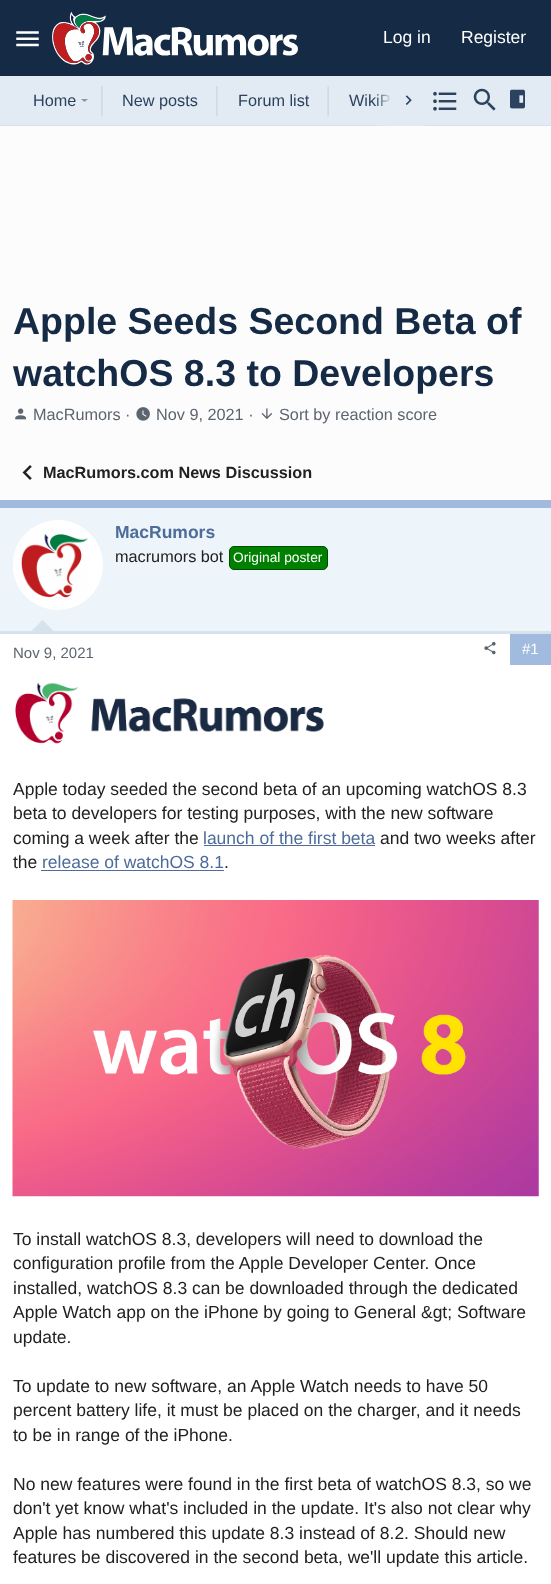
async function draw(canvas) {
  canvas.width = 551
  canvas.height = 1584
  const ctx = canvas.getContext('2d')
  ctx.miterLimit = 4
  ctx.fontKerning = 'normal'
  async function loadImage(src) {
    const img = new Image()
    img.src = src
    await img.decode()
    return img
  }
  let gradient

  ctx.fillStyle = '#fff'
  ctx.fillRect(0, 0, 551, 1584)
  gradient = ctx.createLinearGradient(276, 0, 276, 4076)
  gradient.addColorStop(0, '#cdd9eb')
  gradient.addColorStop(0.03, '#fcfcfc')
  ctx.fillStyle = gradient
  ctx.fillRect(0, 126, 551, 374)
  ctx.fillStyle = '#152a44'
  ctx.fillRect(0, 0, 551, 76)
  ctx.drawImage(await loadImage('image0.png'), 16, 31, 23, 16)
  ctx.drawImage(await loadImage('image1.png'), 52, 11, 246, 54)
  ctx.font = '17.5px Liberation Sans'
  ctx.fillStyle = '#fff'
  ctx.fillText('Log in', 383, 43)
  ctx.fillText('Register', 461, 43)
  ctx.fillStyle = '#e2eaf3'
  ctx.fillRect(0, 76, 551, 49)
  ctx.fillStyle = '#d7e2ef'
  ctx.fillRect(0, 125, 551, 1)
  ctx.drawImage(await loadImage('image2.png'), 101, 86, 2, 31)
  ctx.font = '16.25px Liberation Sans'
  ctx.fillStyle = '#2c435f'
  ctx.fillText('Home', 33, 106)
  ctx.fillStyle = '#8797a9'
  ctx.beginPath()
  ctx.moveTo(81, 99)
  ctx.lineTo(84.5, 102)
  ctx.lineTo(88, 99)
  ctx.closePath()
  ctx.fill()
  ctx.drawImage(await loadImage('image2.png'), 216, 86, 2, 31)
  ctx.fillStyle = '#2c435f'
  ctx.fillText('New posts', 122, 106)
  ctx.drawImage(await loadImage('image3.png'), 327, 86, 2, 31)
  ctx.fillText('Forum list', 238, 106)
  ctx.fillText('WikiP', 349, 106)
  gradient = ctx.createLinearGradient(375, 101, 425, 101)
  gradient.addColorStop(0, '#e2eaf300')
  gradient.addColorStop(0.33, '#e2eaf3')
  ctx.fillStyle = gradient
  ctx.fillRect(375, 94, 50, 32)
  ctx.drawImage(await loadImage('image4.png'), 405, 95, 7, 10)
  ctx.drawImage(await loadImage('image5.png'), 433, 91, 24, 20)
  ctx.drawImage(await loadImage('image6.png'), 473, 88, 23, 23)
  ctx.drawImage(await loadImage('image7.png'), 510, 89, 15, 20)
  ctx.font = 'bold 37.5px Liberation Sans'
  ctx.fillStyle = '#152a44'
  ctx.fillText('Apple Seeds Second Beta of', 13, 334)
  ctx.fillText('watchOS 8.3 to Developers', 13, 386)
  ctx.drawImage(await loadImage('image8.png'), 15, 408, 12, 12)
  ctx.font = '16.25px Liberation Sans'
  ctx.fillStyle = '#5c656f'
  ctx.fillText('MacRumors ·', 33, 420)
  ctx.drawImage(await loadImage('image9.png'), 136, 407, 14, 14)
  ctx.fillText('Nov 9, 2021 ·', 156, 420)
  ctx.drawImage(await loadImage('image10.png'), 261, 408, 12, 12)
  ctx.fillText('Sort by reaction score', 279, 420)
  ctx.drawImage(await loadImage('image11.png'), 22, 465, 10, 15)
  ctx.font = 'bold 16.25px Liberation Sans'
  ctx.fillStyle = '#212121'
  ctx.fillText('MacRumors.com News Discussion', 43, 478)
  ctx.fillStyle = '#a1bbdf'
  ctx.fillRect(0, 500, 551, 8)
  ctx.fillStyle = '#edf4fa'
  ctx.fillRect(0, 508, 551, 123)
  ctx.fillStyle = '#d7e2ef'
  ctx.fillRect(0, 631, 551, 3)
  ctx.fillStyle = '#fff'
  ctx.beginPath()
  ctx.arc(58, 565, 45, 0, 2 * Math.PI)
  ctx.fill()
  ctx.drawImage(await loadImage('image12.png'), 13, 528, 75, 74)
  ctx.font = 'bold 17.5px Liberation Sans'
  ctx.fillStyle = '#4d6c99'
  ctx.fillText('MacRumors', 115, 538)
  ctx.font = '16.25px Liberation Sans'
  ctx.fillStyle = '#212121'
  ctx.fillText('macrumors bot', 115, 562)
  ctx.fillStyle = '#008000'
  ctx.beginPath()
  ctx.roundRect(229.5, 546.5, 98, 23, 4.5)
  ctx.fill()
  ctx.strokeStyle = '#004d00'
  ctx.stroke()
  ctx.font = '13.75px Liberation Sans'
  ctx.fillStyle = '#fff'
  ctx.fillText('Original poster', 233, 562)
  ctx.fillStyle = '#d7e2ef'
  ctx.beginPath()
  ctx.moveTo(55, 632.5)
  ctx.lineTo(30, 632.5)
  ctx.lineTo(42.5, 620)
  ctx.closePath()
  ctx.fill()
  ctx.font = '15px Liberation Sans'
  ctx.fillStyle = '#5c656f'
  ctx.fillText('Nov 9, 2021', 13, 658)
  ctx.drawImage(await loadImage('image13.png'), 484, 641, 12, 14)
  ctx.fillStyle = '#a1bbdf'
  ctx.fillRect(510, 634, 41, 31)
  ctx.fillStyle = '#fff'
  ctx.fillText('#1', 522, 654)
  ctx.drawImage(await loadImage('image14.png'), 15, 682, 309, 62)
  ctx.font = '17.5px Liberation Sans'
  ctx.fillStyle = '#212121'
  ctx.fillText('Apple today seeded the second beta of an upcoming watchOS 8.3', 13, 795)
  ctx.fillText('beta to developers for testing purposes, with the new software', 13, 819)
  ctx.fillText('coming a week after the', 13, 844)
  ctx.fillStyle = '#4d6c99'
  ctx.fillText('launch of the first beta', 203, 844)
  ctx.fillRect(204, 845, 171, 1)
  ctx.fillStyle = '#212121'
  ctx.fillText('and two weeks after', 380, 844)
  ctx.fillText('the', 13, 868)
  ctx.fillStyle = '#4d6c99'
  ctx.fillText('release of watchOS 8.1', 42, 868)
  ctx.fillRect(41, 870, 183, 1)
  ctx.fillStyle = '#212121'
  ctx.fillText('.', 224, 868)
  ctx.drawImage(await loadImage('image15.png'), 12, 900, 527, 297)
  ctx.fillText('To install ‌‌‌watchOS 8‌‌‌.3, developers will need to download the', 13, 1245)
  ctx.fillText('configuration profile from the Apple Developer Center. Once', 13, 1269)
  ctx.fillText('installed, ‌‌‌watchOS 8.3‌‌‌ can be downloaded through the dedicated', 13, 1294)
  ctx.fillText('Apple Watch app on the iPhone by going to General &gt; Software', 13, 1318)
  ctx.fillText('update.', 13, 1343)
  ctx.fillText('To update to new software, an Apple Watch needs to have 50', 13, 1392)
  ctx.fillText('percent battery life, it must be placed on the charger, and it needs', 13, 1416)
  ctx.fillText('to be in range of the ‌‌‌iPhone‌‌‌.', 13, 1441)
  ctx.fillText('No new features were found in the first beta of watchOS 8.3, so we', 13, 1490)
  ctx.fillText('don\'t yet know what\'s included in the update. It\'s also not clear why', 13, 1514)
  ctx.fillText('Apple has numbered this update 8.3 instead of 8.2. Should new', 13, 1539)
  ctx.fillText('features be discovered in the second beta, we\'ll update this article.', 13, 1563)
}

draw(document.querySelector('canvas'))
